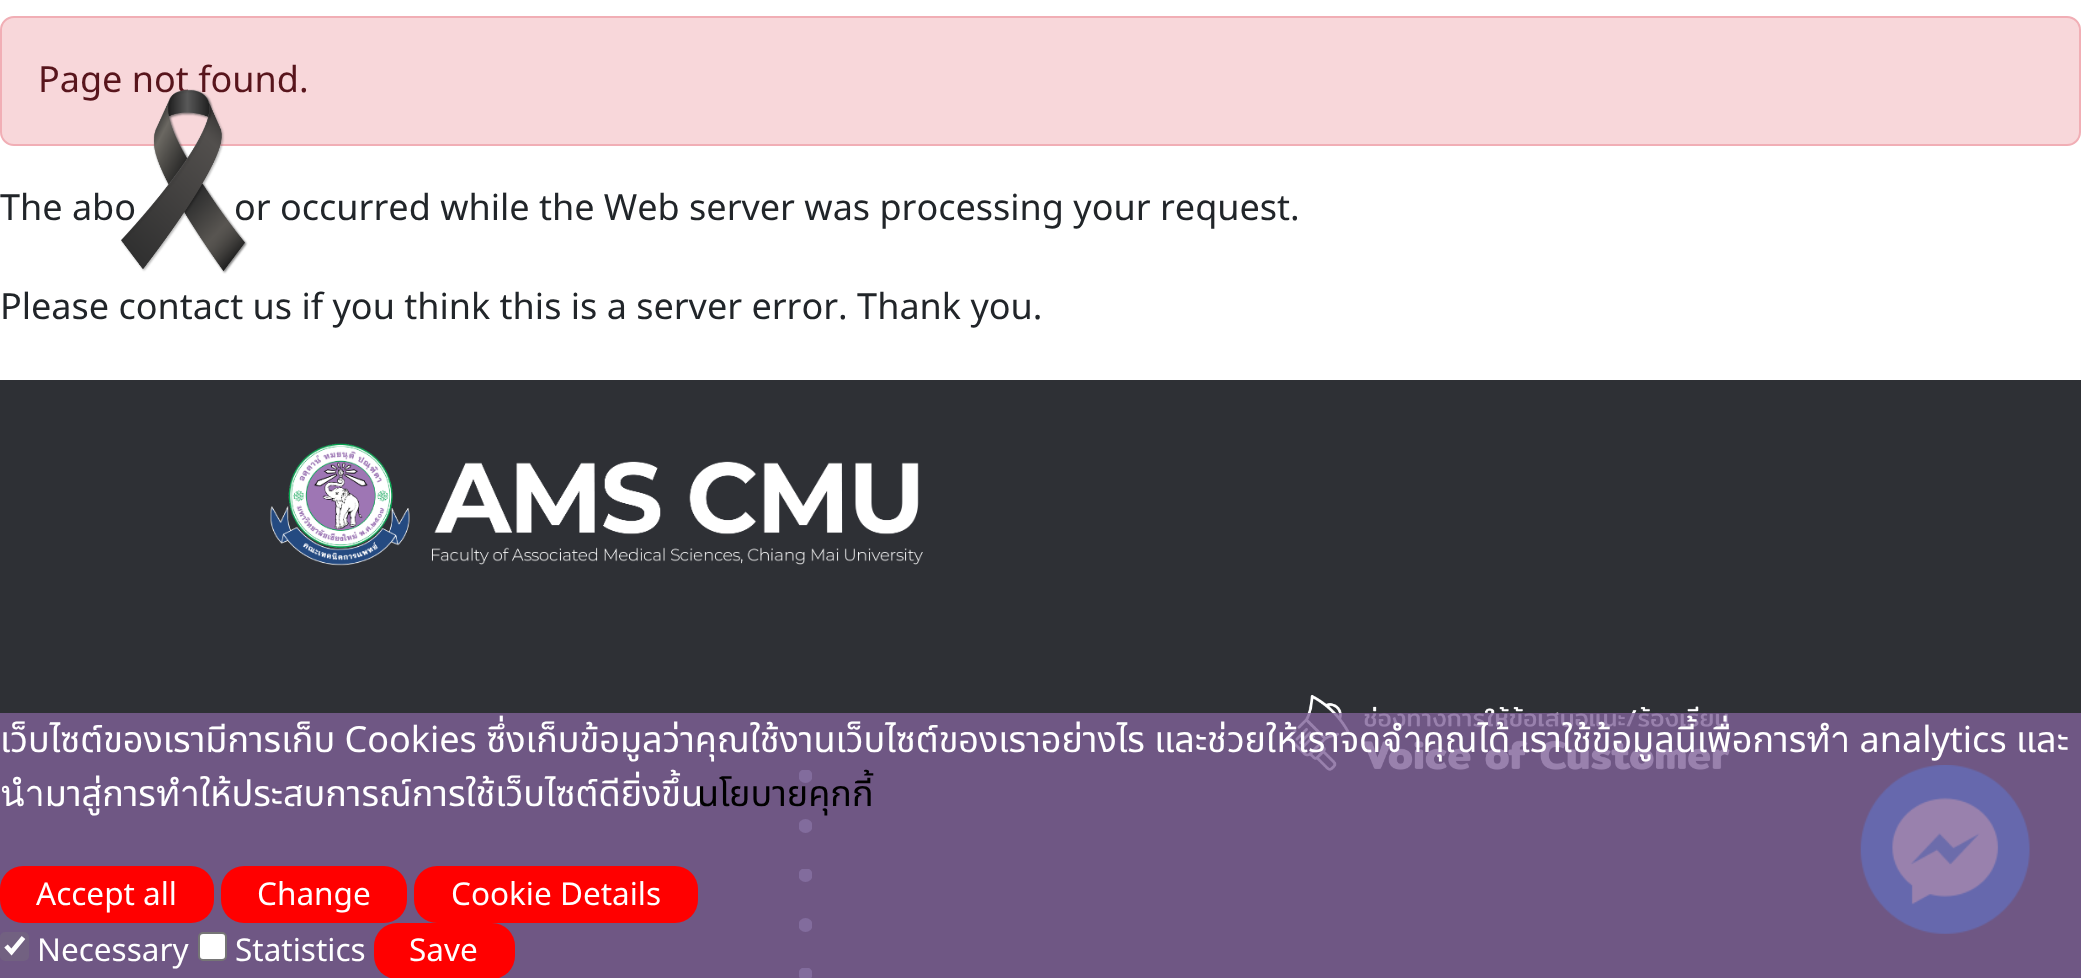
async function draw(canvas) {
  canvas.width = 2081
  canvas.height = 978
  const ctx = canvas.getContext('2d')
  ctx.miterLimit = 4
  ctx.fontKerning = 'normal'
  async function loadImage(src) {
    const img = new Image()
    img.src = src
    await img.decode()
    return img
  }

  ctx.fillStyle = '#fff'
  ctx.fillRect(0, 0, 2081, 978)
  ctx.fillStyle = '#f8d7da'
  ctx.beginPath()
  ctx.roundRect(1, 17, 2079, 128, 13)
  ctx.fill()
  ctx.strokeStyle = '#f1aeb5'
  ctx.lineWidth = 2
  ctx.stroke()
  ctx.font = '36px Noto Sans Thai'
  ctx.fillStyle = '#58151c'
  ctx.fillText('Page not found.', 38, 92)
  ctx.fillStyle = '#212529'
  ctx.fillText('The abo', 0, 220)
  ctx.fillText('or occurred while the Web server was processing your request.', 234, 220)
  ctx.fillText('Please contact us if you think this is a server error. Thank you.', 0, 319)
  ctx.drawImage(await loadImage('image0.png'), 120, 89, 128, 185)
  ctx.fillStyle = '#2e3035'
  ctx.fillRect(0, 380, 2081, 598)
  ctx.drawImage(await loadImage('image1.png'), 270, 443, 653, 123)
  ctx.drawImage(await loadImage('image2.png'), 1288, 694, 442, 77)
  ctx.save()
  ctx.beginPath()
  ctx.rect(799, 770, 13, 13)
  ctx.clip()
  ctx.fillStyle = '#8d97ad'
  ctx.beginPath()
  ctx.arc(805.5, 776, 7, 0, 2 * Math.PI)
  ctx.fill()
  ctx.restore()
  ctx.save()
  ctx.beginPath()
  ctx.rect(799, 819, 13, 14)
  ctx.clip()
  ctx.fillStyle = '#8d97ad'
  ctx.beginPath()
  ctx.arc(805.5, 826, 7, 0, 2 * Math.PI)
  ctx.fill()
  ctx.restore()
  ctx.save()
  ctx.beginPath()
  ctx.rect(799, 869, 13, 13)
  ctx.clip()
  ctx.fillStyle = '#8d97ad'
  ctx.beginPath()
  ctx.arc(805.5, 875, 7, 0, 2 * Math.PI)
  ctx.fill()
  ctx.restore()
  ctx.save()
  ctx.beginPath()
  ctx.rect(799, 918, 13, 14)
  ctx.clip()
  ctx.fillStyle = '#8d97ad'
  ctx.beginPath()
  ctx.arc(805.5, 925, 7, 0, 2 * Math.PI)
  ctx.fill()
  ctx.restore()
  ctx.save()
  ctx.beginPath()
  ctx.rect(799, 968, 13, 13)
  ctx.clip()
  ctx.fillStyle = '#8d97ad'
  ctx.beginPath()
  ctx.arc(805.5, 974, 7, 0, 2 * Math.PI)
  ctx.fill()
  ctx.restore()
  ctx.drawImage(await loadImage('image3.png'), 1860, 765, 170, 169)
  ctx.fillStyle = '#806299cc'
  ctx.fillRect(0, 713, 2081, 265)
  ctx.fillStyle = '#fff'
  ctx.fillText('เว็บไซต์ของเรามีการเก็บ Cookies ซึ่งเก็บข้อมูลว่าคุณใช้งานเว็บไซต์ของเราอย่างไร และช่วยให้เราจดจำคุณได้ เราใช้ข้อมูลนี้เพื่อการทำ analytics และ', 0, 752)
  ctx.fillText('นำมาสู่การทำให้ประสบการณ์การใช้เว็บไซต์ดียิ่งขึ้น', 0, 806)
  ctx.fillStyle = '#000'
  ctx.fillText('นโยบายคุกกี้', 697, 806)
  ctx.fillStyle = '#f00'
  ctx.beginPath()
  ctx.roundRect(0, 866, 214, 57, 23)
  ctx.fill()
  ctx.font = '31.5px Noto Sans Thai'
  ctx.fillStyle = '#fff'
  ctx.fillText('Accept all', 36, 905)
  ctx.fillStyle = '#f00'
  ctx.beginPath()
  ctx.roundRect(221, 866, 186, 57, 23)
  ctx.fill()
  ctx.fillStyle = '#fff'
  ctx.fillText('Change', 257, 905)
  ctx.fillStyle = '#f00'
  ctx.beginPath()
  ctx.roundRect(414, 866, 284, 57, 23)
  ctx.fill()
  ctx.fillStyle = '#fff'
  ctx.fillText('Cookie Details', 451, 905)
  ctx.fillStyle = '#726181'
  ctx.beginPath()
  ctx.roundRect(0, 932, 29, 29, 5)
  ctx.fill()
  ctx.beginPath()
  ctx.moveTo(6, 946)
  ctx.lineTo(11.5, 952)
  ctx.lineTo(23.5, 937.5)
  ctx.strokeStyle = '#fff'
  ctx.lineWidth = 4.7
  ctx.stroke()
  ctx.fillStyle = '#fff'
  ctx.fillText('Necessary', 37, 961)
  ctx.beginPath()
  ctx.roundRect(199, 933, 27, 27, 4)
  ctx.fill()
  ctx.strokeStyle = '#767676'
  ctx.lineWidth = 2
  ctx.stroke()
  ctx.fillText('Statistics', 235, 961)
  ctx.fillStyle = '#f00'
  ctx.beginPath()
  ctx.roundRect(374, 923, 141, 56, 23)
  ctx.fill()
  ctx.fillStyle = '#fff'
  ctx.fillText('Save', 409, 961)
}

draw(document.querySelector('canvas'))
